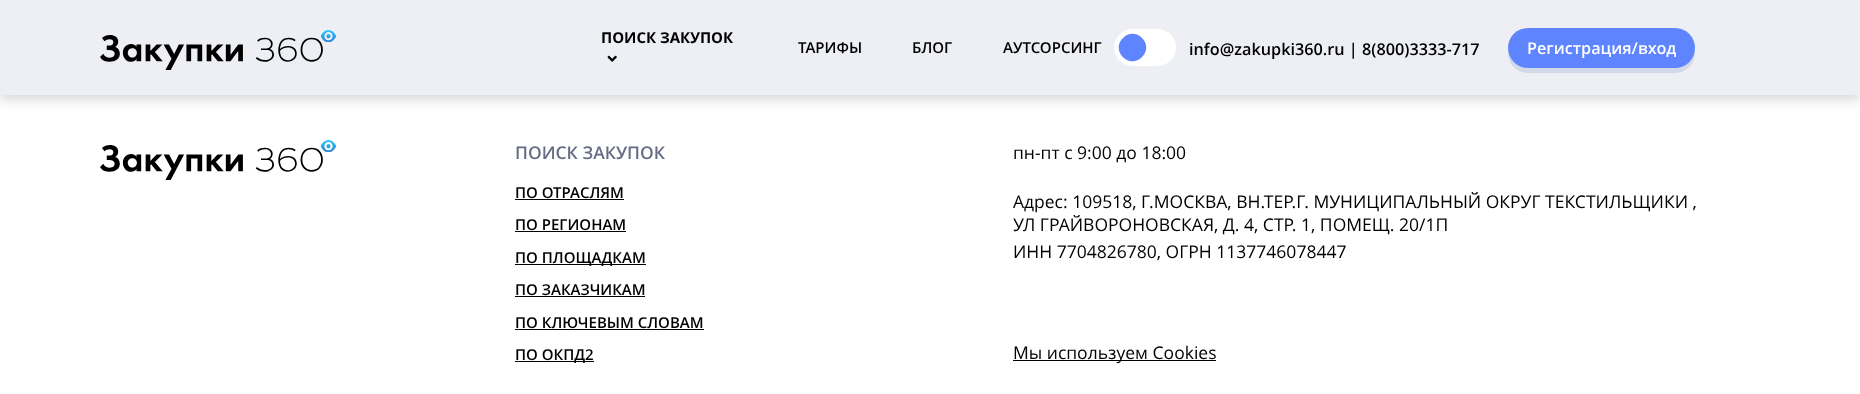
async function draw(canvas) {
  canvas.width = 1860
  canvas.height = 394
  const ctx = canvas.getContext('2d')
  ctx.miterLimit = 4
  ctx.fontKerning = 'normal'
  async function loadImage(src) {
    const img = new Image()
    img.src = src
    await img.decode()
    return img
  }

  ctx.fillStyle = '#fff'
  ctx.fillRect(0, 0, 1860, 394)
  ctx.fillStyle = '#00000026'
  ctx.filter = 'blur(6px)'
  ctx.beginPath()
  ctx.rect(0, 5, 1860, 95)
  ctx.fill()
  ctx.filter = 'none'
  ctx.fillStyle = '#edeff5'
  ctx.fillRect(0, 0, 1860, 95)
  ctx.drawImage(await loadImage('image0.png'), 100, 30, 236, 40)
  ctx.font = 'bold 15px Open Sans'
  ctx.fillStyle = '#000'
  ctx.fillText('ПОИСК ЗАКУПОК', 601, 43)
  ctx.drawImage(await loadImage('image1.png'), 607, 55, 10, 7)
  ctx.font = '600 15px Open Sans'
  ctx.fillText('ТАРИФЫ', 798, 53)
  ctx.fillText('БЛОГ', 912, 53)
  ctx.fillText('АУТСОРСИНГ', 1003, 53)
  ctx.fillStyle = '#fff'
  ctx.beginPath()
  ctx.roundRect(1114, 29, 62, 37, 18.5)
  ctx.fill()
  ctx.fillStyle = '#5e84ff'
  ctx.beginPath()
  ctx.moveTo(1123, 38)
  ctx.bezierCurveTo(1135.5, 25, 1155, 44.5, 1142, 57)
  ctx.bezierCurveTo(1129.5, 70, 1110, 50.5, 1123, 38)
  ctx.closePath()
  ctx.fill()
  ctx.font = '600 16.25px Open Sans'
  ctx.fillStyle = '#000'
  ctx.fillText('info@zakupki360.ru | 8(800)3333-717', 1189, 55)
  ctx.fillStyle = '#d3d8e8'
  ctx.beginPath()
  ctx.moveTo(1508, 52)
  ctx.lineTo(1508, 53)
  ctx.bezierCurveTo(1508, 64, 1517, 73, 1528, 73)
  ctx.lineTo(1675, 73)
  ctx.bezierCurveTo(1686, 73, 1695, 64, 1695, 53)
  ctx.lineTo(1695, 50)
  ctx.bezierCurveTo(1693, 60, 1685, 68, 1675, 68)
  ctx.lineTo(1528, 68)
  ctx.bezierCurveTo(1518, 68, 1510, 61, 1508, 52)
  ctx.closePath()
  ctx.fill()
  ctx.fillStyle = '#5e84ff'
  ctx.beginPath()
  ctx.roundRect(1508, 28, 187, 40, 20)
  ctx.fill()
  ctx.fillStyle = '#fff'
  ctx.fillText('Регистрация/вход', 1527, 54)
  ctx.drawImage(await loadImage('image2.png'), 100, 140, 236, 40)
  ctx.font = '600 17.5px Open Sans'
  ctx.fillStyle = '#676c82'
  ctx.fillText('ПОИСК ЗАКУПОК', 515, 159)
  ctx.font = '600 15px Open Sans'
  ctx.fillStyle = '#000'
  ctx.fillText('ПО ОТРАСЛЯМ', 515, 198)
  ctx.fillRect(515, 199, 109, 1)
  ctx.fillText('ПО РЕГИОНАМ', 515, 230)
  ctx.fillRect(515, 231, 111, 1)
  ctx.fillRect(515, 264, 131, 1)
  ctx.fillText('ПО ПЛОЩАДКАМ', 515, 263)
  ctx.fillText('ПО ЗАКАЗЧИКАМ', 515, 295)
  ctx.fillRect(515, 296, 130, 1)
  ctx.fillText('ПО КЛЮЧЕВЫМ СЛОВАМ', 515, 328)
  ctx.fillRect(515, 329, 189, 1)
  ctx.fillRect(515, 361, 79, 1)
  ctx.fillText('ПО ОКПД2', 515, 360)
  ctx.font = '17.5px Open Sans'
  ctx.fillText('пн-пт с 9:00 до 18:00', 1013, 159)
  ctx.fillText('Адрес: 109518, Г.МОСКВА, ВН.ТЕР.Г. МУНИЦИПАЛЬНЫЙ ОКРУГ ТЕКСТИЛЬЩИКИ ,', 1013, 208)
  ctx.fillText('УЛ ГРАЙВОРОНОВСКАЯ, Д. 4, СТР. 1, ПОМЕЩ. 20/1П', 1013, 231)
  ctx.fillText('ИНН 7704826780, ОГРН 1137746078447', 1013, 258)
  ctx.fillRect(1013, 360, 203, 1)
  ctx.fillText('Мы используем Cookies', 1013, 359)
}

draw(document.querySelector('canvas'))
